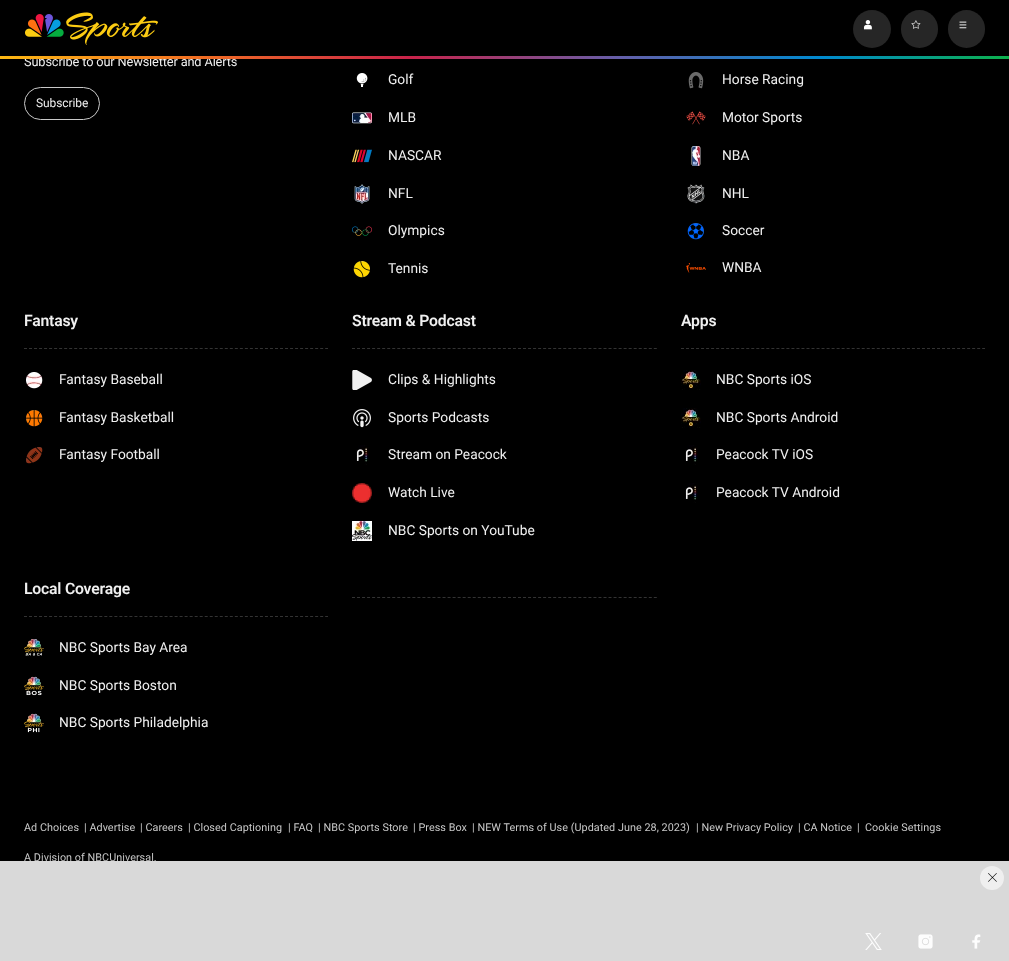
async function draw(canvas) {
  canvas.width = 1009
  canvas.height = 961
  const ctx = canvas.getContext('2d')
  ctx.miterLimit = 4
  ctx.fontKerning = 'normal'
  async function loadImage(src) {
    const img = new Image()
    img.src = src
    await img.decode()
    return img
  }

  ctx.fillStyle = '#000'
  ctx.fillRect(0, 0, 1009, 961)
  ctx.drawImage(await loadImage('image0.png'), 25, 12, 133, 33)
  ctx.fillStyle = '#262626'
  ctx.beginPath()
  ctx.arc(872, 29, 19, 0, 2 * Math.PI)
  ctx.fill()
  ctx.drawImage(await loadImage('image1.png'), 863, 20, 9, 10)
  ctx.beginPath()
  ctx.roundRect(901, 10, 37, 38, 18.5)
  ctx.fill()
  ctx.drawImage(await loadImage('image2.png'), 911, 20, 10, 9)
  ctx.beginPath()
  ctx.roundRect(948, 10, 37, 38, 18.5)
  ctx.fill()
  ctx.drawImage(await loadImage('image3.png'), 959, 21, 8, 8)
  ctx.letterSpacing = '-0.15px'
  ctx.font = '12.8px Roboto'
  ctx.fillStyle = '#f0f0f0'
  ctx.fillText('Subscribe to our Newsletter and Alerts', 24, 66)
  ctx.drawImage(await loadImage('image4.png'), 0, 56, 1009, 3)
  ctx.beginPath()
  ctx.roundRect(24.5, 87.5, 75, 32, 16)
  ctx.strokeStyle = '#c9c9c9'
  ctx.stroke()
  ctx.letterSpacing = '-0.1px'
  ctx.font = '12px Roboto'
  ctx.fillText('Subscribe', 36, 107)
  ctx.drawImage(await loadImage('image5.png'), 356, 73, 12, 14)
  ctx.letterSpacing = '0px'
  ctx.font = '13.75px Roboto'
  ctx.fillText('Golf', 388, 84)
  ctx.drawImage(await loadImage('image6.png'), 688, 72, 16, 17)
  ctx.fillText('Horse Racing', 722, 84)
  ctx.drawImage(await loadImage('image7.png'), 352, 112, 20, 12)
  ctx.fillText('MLB', 388, 122)
  ctx.drawImage(await loadImage('image8.png'), 686, 111, 20, 14)
  ctx.fillText('Motor Sports', 722, 122)
  ctx.drawImage(await loadImage('image9.png'), 352, 149, 20, 14)
  ctx.fillText('NASCAR', 388, 160)
  ctx.drawImage(await loadImage('image10.png'), 691, 146, 10, 20)
  ctx.fillText('NBA', 722, 160)
  ctx.drawImage(await loadImage('image11.png'), 354, 184, 16, 20)
  ctx.fillText('NFL', 388, 198)
  ctx.drawImage(await loadImage('image12.png'), 687, 184, 18, 20)
  ctx.fillText('NHL', 722, 198)
  ctx.drawImage(await loadImage('image13.png'), 352, 226, 20, 10)
  ctx.fillText('Olympics', 388, 235)
  ctx.drawImage(await loadImage('image14.png'), 687, 223, 17, 17)
  ctx.fillText('Soccer', 722, 235)
  ctx.drawImage(await loadImage('image15.png'), 353, 261, 17, 17)
  ctx.fillText('Tennis', 388, 273)
  ctx.drawImage(await loadImage('image16.png'), 686, 263, 20, 10)
  ctx.fillText('WNBA', 722, 272)
  ctx.beginPath()
  ctx.moveTo(24, 348.5)
  ctx.lineTo(328, 348.5)
  ctx.strokeStyle = '#333'
  ctx.setLineDash([3, 2.02])
  ctx.stroke()
  ctx.letterSpacing = '-0.2px'
  ctx.font = '600 15.75px Roboto'
  ctx.fillText('Fantasy', 24, 326)
  ctx.drawImage(await loadImage('image17.png'), 26, 372, 17, 17)
  ctx.letterSpacing = '0px'
  ctx.font = '13.75px Roboto'
  ctx.fillText('Fantasy Baseball', 59, 384)
  ctx.drawImage(await loadImage('image18.png'), 26, 410, 17, 17)
  ctx.fillText('Fantasy Basketball', 59, 422)
  ctx.drawImage(await loadImage('image19.png'), 26, 447, 17, 17)
  ctx.fillText('Fantasy Football', 59, 459)
  ctx.beginPath()
  ctx.moveTo(352, 348.5)
  ctx.lineTo(657, 348.5)
  ctx.setLineDash([3, 2.03])
  ctx.stroke()
  ctx.letterSpacing = '-0.2px'
  ctx.font = '600 15.75px Roboto'
  ctx.fillText('Stream & Podcast', 352, 326)
  ctx.drawImage(await loadImage('image20.png'), 352, 370, 20, 20)
  ctx.letterSpacing = '0px'
  ctx.font = '13.75px Roboto'
  ctx.fillText('Clips & Highlights', 388, 384)
  ctx.drawImage(await loadImage('image21.png'), 353, 409, 18, 19)
  ctx.fillText('Sports Podcasts', 388, 422)
  ctx.drawImage(await loadImage('image22.png'), 356, 445, 13, 20)
  ctx.fillText('Stream on Peacock', 388, 459)
  ctx.drawImage(await loadImage('image23.png'), 352, 483, 20, 20)
  ctx.fillText('Watch Live', 388, 497)
  ctx.drawImage(await loadImage('image24.png'), 352, 521, 20, 20)
  ctx.fillText('NBC Sports on YouTube', 388, 535)
  ctx.beginPath()
  ctx.moveTo(681, 348.5)
  ctx.lineTo(985, 348.5)
  ctx.setLineDash([3, 2.02])
  ctx.stroke()
  ctx.letterSpacing = '-0.2px'
  ctx.font = '600 15.75px Roboto'
  ctx.fillText('Apps', 681, 326)
  ctx.drawImage(await loadImage('image25.png'), 681, 370, 20, 20)
  ctx.letterSpacing = '0px'
  ctx.font = '13.75px Roboto'
  ctx.fillText('NBC Sports iOS', 716, 384)
  ctx.drawImage(await loadImage('image25.png'), 681, 408, 20, 20)
  ctx.fillText('NBC Sports Android', 716, 422)
  ctx.drawImage(await loadImage('image22.png'), 685, 445, 13, 20)
  ctx.fillText('Peacock TV iOS', 716, 459)
  ctx.drawImage(await loadImage('image22.png'), 685, 483, 13, 20)
  ctx.fillText('Peacock TV Android', 716, 497)
  ctx.beginPath()
  ctx.moveTo(24, 616.5)
  ctx.lineTo(328, 616.5)
  ctx.stroke()
  ctx.letterSpacing = '-0.2px'
  ctx.font = '600 15.75px Roboto'
  ctx.fillText('Local Coverage', 24, 594)
  ctx.drawImage(await loadImage('image26.png'), 24, 639, 20, 17)
  ctx.letterSpacing = '0px'
  ctx.font = '13.75px Roboto'
  ctx.fillText('NBC Sports Bay Area', 59, 652)
  ctx.drawImage(await loadImage('image27.png'), 24, 676, 20, 20)
  ctx.fillText('NBC Sports Boston', 59, 690)
  ctx.drawImage(await loadImage('image28.png'), 24, 713, 20, 20)
  ctx.fillText('NBC Sports Philadelphia', 59, 727)
  ctx.beginPath()
  ctx.moveTo(352, 597.5)
  ctx.lineTo(657, 597.5)
  ctx.setLineDash([3, 2.03])
  ctx.stroke()
  ctx.letterSpacing = '0.05px'
  ctx.font = '10.8px Roboto'
  ctx.fillStyle = '#c9c9c9'
  ctx.fillText('Ad Choices', 24, 831)
  ctx.fillText('| Advertise', 84, 831)
  ctx.fillText('| Careers', 140, 831)
  ctx.fillText('| Closed Captioning', 188, 831)
  ctx.fillText('| FAQ', 288, 831)
  ctx.fillText('| NBC Sports Store', 318, 831)
  ctx.fillText('| Press Box', 413, 831)
  ctx.fillText('| NEW Terms of Use (Updated June 28, 2023)', 472, 831)
  ctx.fillText('| New Privacy Policy', 696, 831)
  ctx.fillText('| CA Notice', 798, 831)
  ctx.fillText('|', 857, 831)
  ctx.fillText('Cookie Settings', 865, 831)
  ctx.fillText('A Division of NBCUniversal.', 24, 861)
  ctx.drawImage(await loadImage('image29.png'), 865, 933, 17, 17)
  ctx.drawImage(await loadImage('image30.png'), 918, 934, 15, 15)
  ctx.drawImage(await loadImage('image31.png'), 972, 934, 9, 15)
  ctx.save()
  ctx.beginPath()
  ctx.rect(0, 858, 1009, 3)
  ctx.clip()
  ctx.fillStyle = '#00000014'
  ctx.filter = 'blur(2px)'
  ctx.beginPath()
  ctx.rect(0, 859, 1009, 100)
  ctx.fill()
  ctx.filter = 'none'
  ctx.restore()
  ctx.fillStyle = '#ffffffd9'
  ctx.fillRect(0, 861, 1009, 100)
  ctx.fillStyle = '#efefef'
  ctx.beginPath()
  ctx.arc(992, 878, 12, 0, 2 * Math.PI)
  ctx.fill()
  ctx.drawImage(await loadImage('image32.png'), 988, 873, 9, 9)
}

draw(document.querySelector('canvas'))
